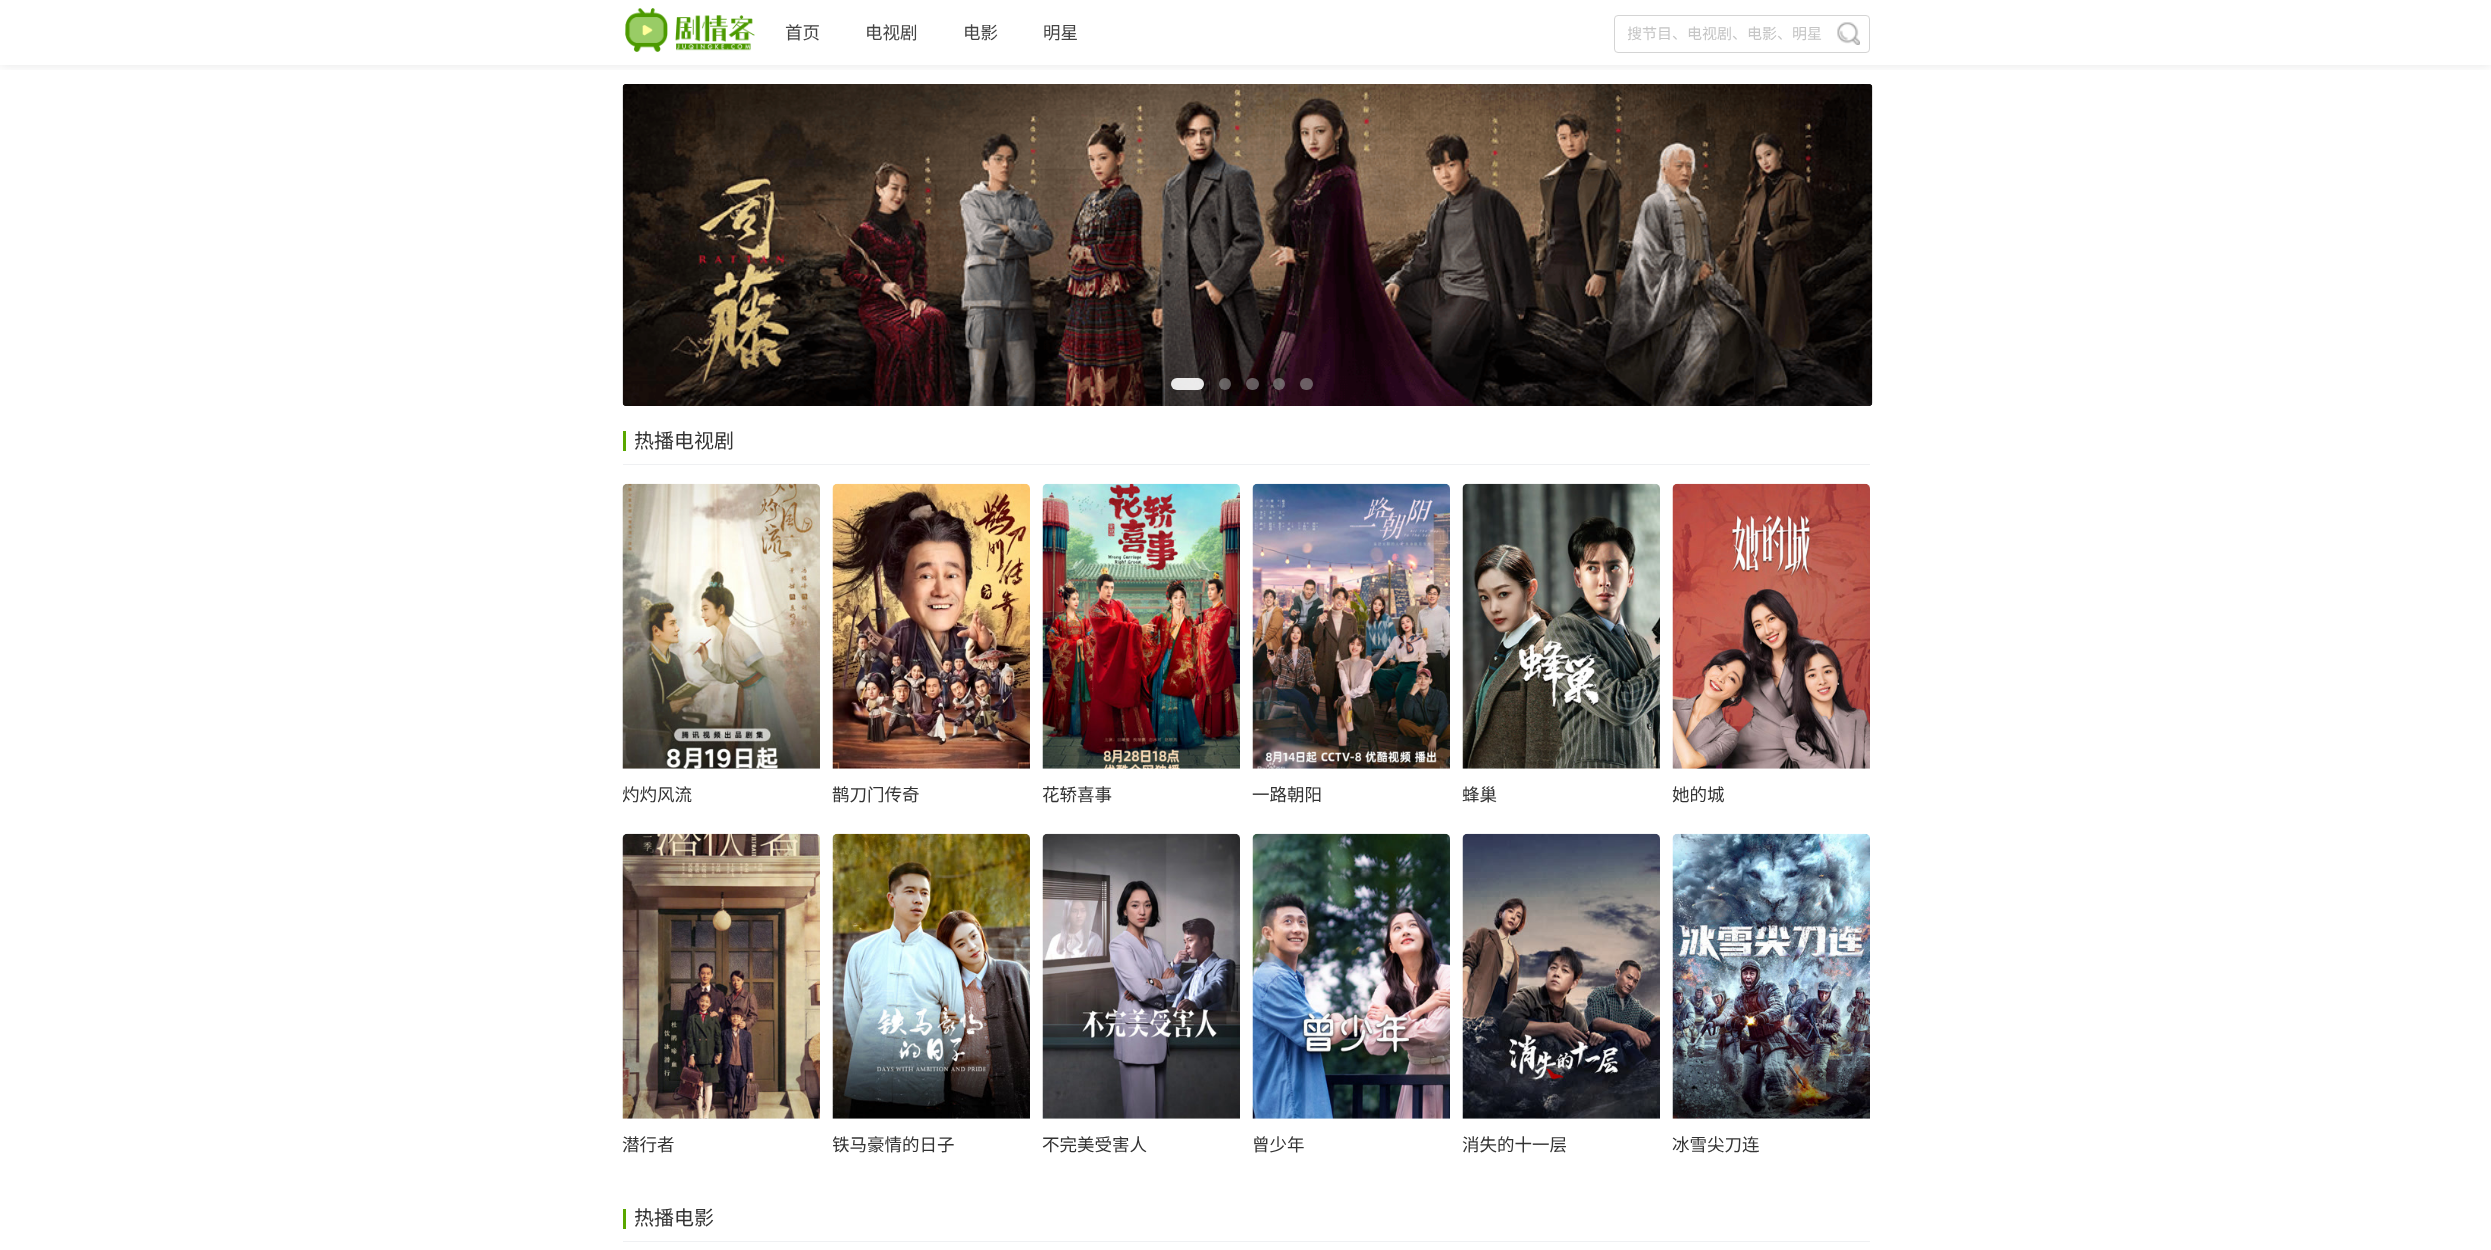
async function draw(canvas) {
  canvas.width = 2491
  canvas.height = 1250
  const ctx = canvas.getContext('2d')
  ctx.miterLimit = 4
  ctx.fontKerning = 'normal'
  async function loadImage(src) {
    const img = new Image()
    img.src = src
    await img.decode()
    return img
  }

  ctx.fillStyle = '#fff'
  ctx.fillRect(0, 0, 2491, 1250)
  ctx.save()
  ctx.beginPath()
  ctx.rect(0, 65, 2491, 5)
  ctx.clip()
  ctx.fillStyle = '#0000001a'
  ctx.filter = 'blur(6px)'
  ctx.beginPath()
  ctx.rect(0, 0, 2491, 65)
  ctx.fill()
  ctx.filter = 'none'
  ctx.restore()
  ctx.drawImage(await loadImage('image0.png'), 625, 8, 130, 44)
  ctx.font = '17.5px Noto Sans CJK SC'
  ctx.fillStyle = '#444'
  ctx.fillText('首页', 785, 39)
  ctx.fillText('电视剧', 865, 39)
  ctx.fillText('电影', 963, 39)
  ctx.fillText('明星', 1043, 39)
  ctx.beginPath()
  ctx.roundRect(1614.5, 15.5, 255, 37, 3.5)
  ctx.strokeStyle = '#d4d4d4'
  ctx.stroke()
  ctx.save()
  ctx.beginPath()
  ctx.rect(1628, 21, 210, 22)
  ctx.clip()
  ctx.font = '15px Noto Sans CJK SC'
  ctx.fillStyle = '#c5c5c5'
  ctx.fillText('搜节目、电视剧、电影、明星', 1627, 39)
  ctx.restore()
  ctx.drawImage(await loadImage('image1.png'), 1837, 22, 23, 23)
  ctx.drawImage(await loadImage('image2.png'), 622, 84, 1251, 322)
  ctx.fillStyle = '#ffffffe6'
  ctx.beginPath()
  ctx.roundRect(1171, 378, 33, 12, 6)
  ctx.fill()
  ctx.fillStyle = '#99999999'
  ctx.beginPath()
  ctx.arc(1225, 384, 6, 0, 2 * Math.PI)
  ctx.fill()
  ctx.beginPath()
  ctx.roundRect(1246, 378, 13, 12, 6)
  ctx.fill()
  ctx.beginPath()
  ctx.arc(1279, 384, 6, 0, 2 * Math.PI)
  ctx.fill()
  ctx.beginPath()
  ctx.roundRect(1300, 378, 13, 12, 6)
  ctx.fill()
  ctx.fillStyle = '#eff0f2'
  ctx.fillRect(623, 464, 1247, 1)
  ctx.fillStyle = '#5aa700'
  ctx.fillRect(623, 431, 3, 20)
  ctx.font = '20px Noto Sans CJK SC'
  ctx.fillStyle = '#333'
  ctx.fillText('热播电视剧', 634, 448)
  ctx.drawImage(await loadImage('image3.png'), 622, 483, 198, 286)
  ctx.save()
  ctx.beginPath()
  ctx.rect(623, 781, 197, 28)
  ctx.clip()
  ctx.font = '17.5px Noto Sans CJK SC'
  ctx.fillText('灼灼风流', 622, 801)
  ctx.restore()
  ctx.drawImage(await loadImage('image4.png'), 832, 483, 198, 286)
  ctx.font = '17.5px Noto Sans CJK SC'
  ctx.fillText('鹊刀门传奇', 832, 801)
  ctx.drawImage(await loadImage('image5.png'), 1042, 483, 198, 286)
  ctx.fillText('花轿喜事', 1042, 801)
  ctx.drawImage(await loadImage('image6.png'), 1252, 483, 198, 286)
  ctx.fillText('一路朝阳', 1252, 801)
  ctx.drawImage(await loadImage('image7.png'), 1462, 483, 198, 286)
  ctx.fillText('蜂巢', 1462, 801)
  ctx.drawImage(await loadImage('image8.png'), 1672, 483, 198, 286)
  ctx.fillText('她的城', 1672, 801)
  ctx.drawImage(await loadImage('image9.png'), 622, 833, 198, 286)
  ctx.fillText('潜行者', 622, 1151)
  ctx.drawImage(await loadImage('image10.png'), 832, 833, 198, 286)
  ctx.save()
  ctx.beginPath()
  ctx.rect(833, 1131, 197, 28)
  ctx.clip()
  ctx.fillText('铁马豪情的日子', 832, 1151)
  ctx.restore()
  ctx.drawImage(await loadImage('image11.png'), 1042, 833, 198, 286)
  ctx.fillText('不完美受害人', 1042, 1151)
  ctx.drawImage(await loadImage('image12.png'), 1252, 833, 198, 286)
  ctx.fillText('曾少年', 1252, 1151)
  ctx.drawImage(await loadImage('image13.png'), 1462, 833, 198, 286)
  ctx.fillText('消失的十一层', 1462, 1151)
  ctx.drawImage(await loadImage('image14.png'), 1672, 833, 198, 286)
  ctx.fillText('冰雪尖刀连', 1672, 1151)
  ctx.fillStyle = '#eff0f2'
  ctx.fillRect(623, 1241, 1247, 1)
  ctx.fillStyle = '#5aa700'
  ctx.fillRect(623, 1209, 3, 20)
  ctx.font = '20px Noto Sans CJK SC'
  ctx.fillStyle = '#333'
  ctx.fillText('热播电影', 634, 1225)
}

draw(document.querySelector('canvas'))
